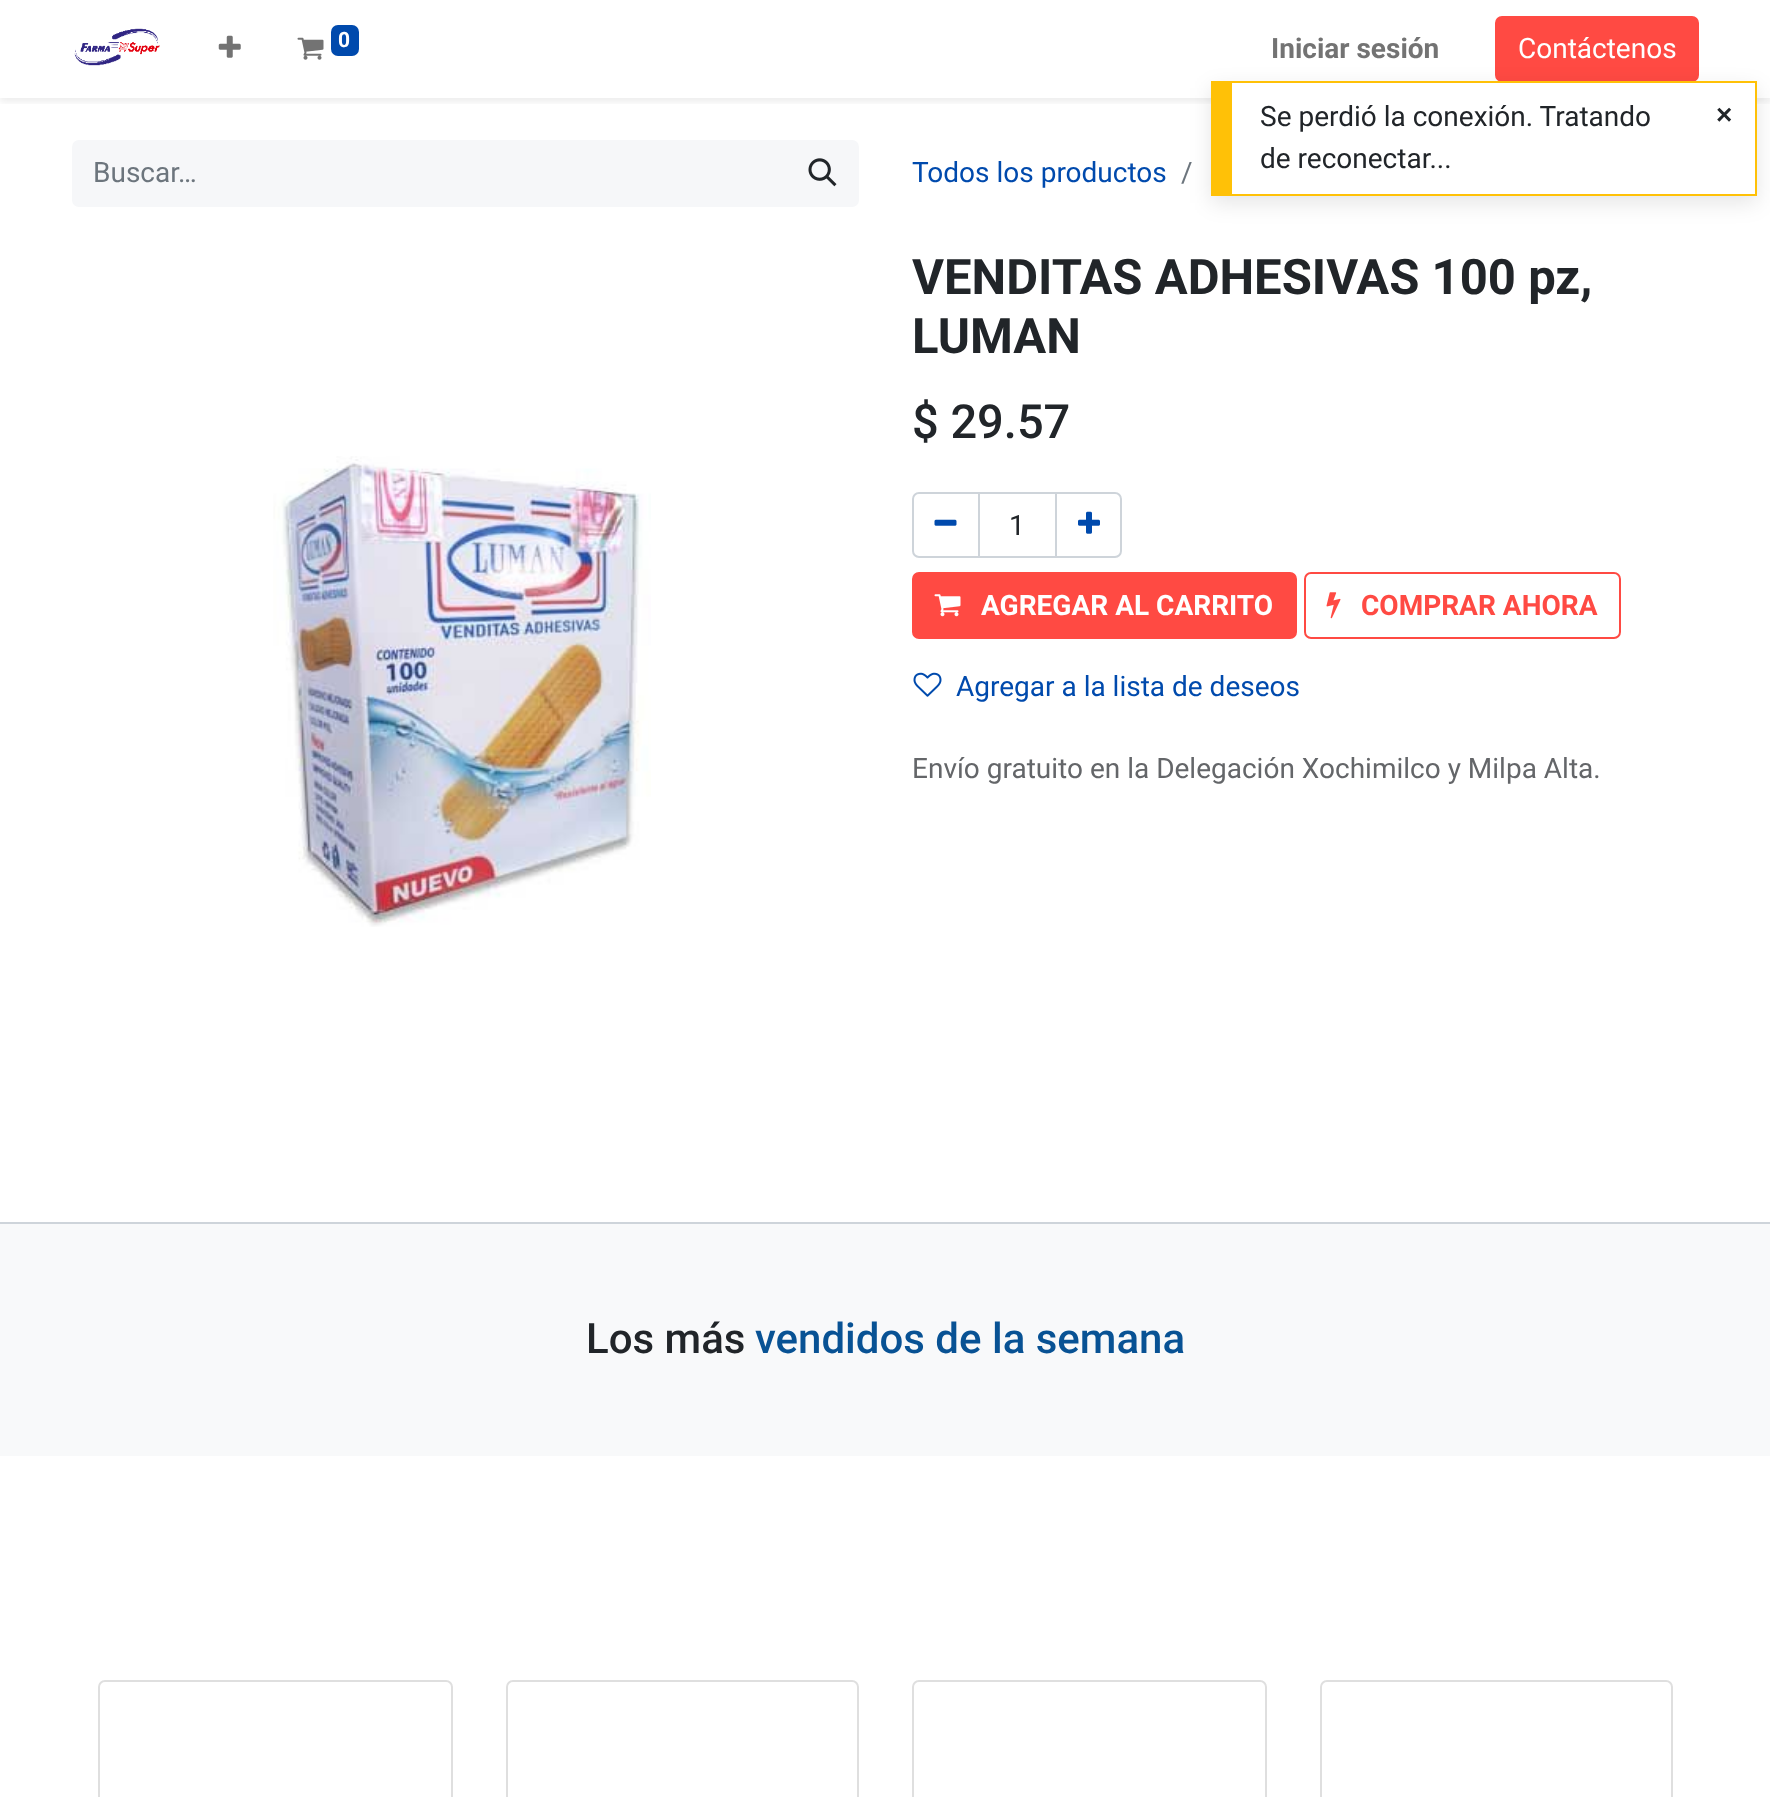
async function draw(canvas) {
  canvas.width = 1770
  canvas.height = 1797
  const ctx = canvas.getContext('2d')
  ctx.miterLimit = 4
  ctx.fontKerning = 'normal'
  async function loadImage(src) {
    const img = new Image()
    img.src = src
    await img.decode()
    return img
  }

  ctx.fillStyle = '#fff'
  ctx.fillRect(0, 0, 1770, 1797)
  ctx.save()
  ctx.beginPath()
  ctx.rect(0, 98, 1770, 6)
  ctx.clip()
  ctx.fillStyle = '#00000012'
  ctx.filter = 'blur(3.5px)'
  ctx.beginPath()
  ctx.rect(0, 4, 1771, 98)
  ctx.fill()
  ctx.filter = 'none'
  ctx.restore()
  ctx.drawImage(await loadImage('image0.png'), 74, 28, 86, 38)
  ctx.drawImage(await loadImage('image1.png'), 218, 35, 23, 23)
  ctx.drawImage(await loadImage('image2.png'), 297, 37, 27, 23)
  ctx.fillStyle = '#004aad'
  ctx.beginPath()
  ctx.roundRect(331, 25, 28, 31, 7)
  ctx.fill()
  ctx.font = 'bold 21px Roboto'
  ctx.fillStyle = '#fff'
  ctx.fillText('0', 338, 47)
  ctx.font = 'bold 28px Roboto'
  ctx.fillStyle = '#737373'
  ctx.fillText('Iniciar sesión', 1271, 58)
  ctx.fillStyle = '#ff4a43'
  ctx.beginPath()
  ctx.roundRect(1496, 17, 202, 64, 6)
  ctx.fill()
  ctx.strokeStyle = '#ff4a43'
  ctx.lineWidth = 2
  ctx.stroke()
  ctx.font = '28px Roboto'
  ctx.fillStyle = '#fff'
  ctx.fillText('Contáctenos', 1518, 58)
  ctx.fillStyle = '#f6f7f9'
  ctx.beginPath()
  ctx.roundRect(72, 140, 716, 67, [7, 0, 0, 7])
  ctx.fill()
  ctx.fillStyle = '#6c757d'
  ctx.fillText('Buscar…', 93, 182)
  ctx.fillStyle = '#f6f7f9'
  ctx.beginPath()
  ctx.roundRect(786, 140, 73, 67, [0, 7, 7, 0])
  ctx.fill()
  ctx.drawImage(await loadImage('image3.png'), 808, 158, 29, 29)
  ctx.fillStyle = '#004aad'
  ctx.fillText('Todos los productos', 912, 182)
  ctx.fillStyle = '#6c757d'
  ctx.fillText('/', 1181, 182)
  ctx.drawImage(await loadImage('image4.png'), 273, 456, 378, 471)
  ctx.font = 'bold 49px Roboto'
  ctx.fillStyle = '#212529'
  ctx.fillText('VENDITAS ADHESIVAS 100 pz,', 912, 294)
  ctx.fillText('LUMAN', 912, 353)
  ctx.font = '500 47px Roboto'
  ctx.fillText('$ 29.57', 912, 438)
  ctx.strokeStyle = '#ced4da'
  ctx.strokeRect(979, 493, 77, 64)
  ctx.beginPath()
  ctx.roundRect(913, 493, 66, 64, [6, 0, 0, 6])
  ctx.stroke()
  ctx.drawImage(await loadImage('image5.png'), 934, 519, 23, 7)
  ctx.font = '28px Roboto'
  ctx.fillText('1', 1009, 535)
  ctx.beginPath()
  ctx.roundRect(1056, 493, 65, 64, [0, 6, 6, 0])
  ctx.stroke()
  ctx.drawImage(await loadImage('image6.png'), 1078, 511, 22, 23)
  ctx.fillStyle = '#ff4a43'
  ctx.beginPath()
  ctx.roundRect(913, 573, 383, 65, 6)
  ctx.fill()
  ctx.strokeStyle = '#ff4a43'
  ctx.stroke()
  ctx.drawImage(await loadImage('image7.png'), 934, 594, 27, 23)
  ctx.font = 'bold 28px Roboto'
  ctx.fillStyle = '#fff'
  ctx.fillText('AGREGAR AL CARRITO', 981, 615)
  ctx.beginPath()
  ctx.roundRect(1305, 573, 315, 65, 6)
  ctx.stroke()
  ctx.drawImage(await loadImage('image8.png'), 1326, 592, 15, 27)
  ctx.fillStyle = '#ff4a43'
  ctx.fillText('COMPRAR AHORA', 1361, 615)
  ctx.drawImage(await loadImage('image9.png'), 913, 672, 29, 25)
  ctx.font = '28px Roboto'
  ctx.fillStyle = '#004aad'
  ctx.fillText('Agregar a la lista de deseos', 956, 696)
  ctx.fillStyle = '#646669'
  ctx.fillText('Envío gratuito en la Delegación Xochimilco y Milpa Alta.', 912, 778)
  ctx.fillStyle = '#f8f9fa'
  ctx.fillRect(0, 1224, 1770, 232)
  ctx.fillStyle = '#ced4da'
  ctx.fillRect(0, 1222, 1770, 2)
  ctx.font = '500 42px Roboto'
  ctx.fillStyle = '#212529'
  ctx.fillText('Los más', 586, 1353)
  ctx.fillStyle = '#085294'
  ctx.fillText('vendidos de la semana', 755, 1353)
  ctx.beginPath()
  ctx.roundRect(99, 1681, 353, 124, 6)
  ctx.strokeStyle = '#dfdfdf'
  ctx.stroke()
  ctx.beginPath()
  ctx.roundRect(507, 1681, 351, 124, 6)
  ctx.stroke()
  ctx.beginPath()
  ctx.roundRect(913, 1681, 353, 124, 6)
  ctx.stroke()
  ctx.beginPath()
  ctx.roundRect(1321, 1681, 351, 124, 6)
  ctx.stroke()
  ctx.fillStyle = '#0000001a'
  ctx.filter = 'blur(10.5px)'
  ctx.beginPath()
  ctx.rect(1211, 88, 546, 115)
  ctx.fill()
  ctx.filter = 'none'
  ctx.fillStyle = '#fff'
  ctx.fillRect(1232, 83, 523, 111)
  ctx.fillStyle = '#ffc107'
  ctx.fillRect(1232, 81, 525, 2)
  ctx.fillRect(1755, 81, 2, 115)
  ctx.fillRect(1232, 194, 525, 2)
  ctx.fillRect(1211, 81, 21, 115)
  ctx.font = '28px Roboto'
  ctx.fillStyle = '#212529'
  ctx.fillText('Se perdió la conexión. Tratando', 1260, 126)
  ctx.fillText('de reconectar...', 1260, 168)
  ctx.font = 'bold 28px Liberation Sans'
  ctx.fillText('×', 1716, 124)
}

draw(document.querySelector('canvas'))
